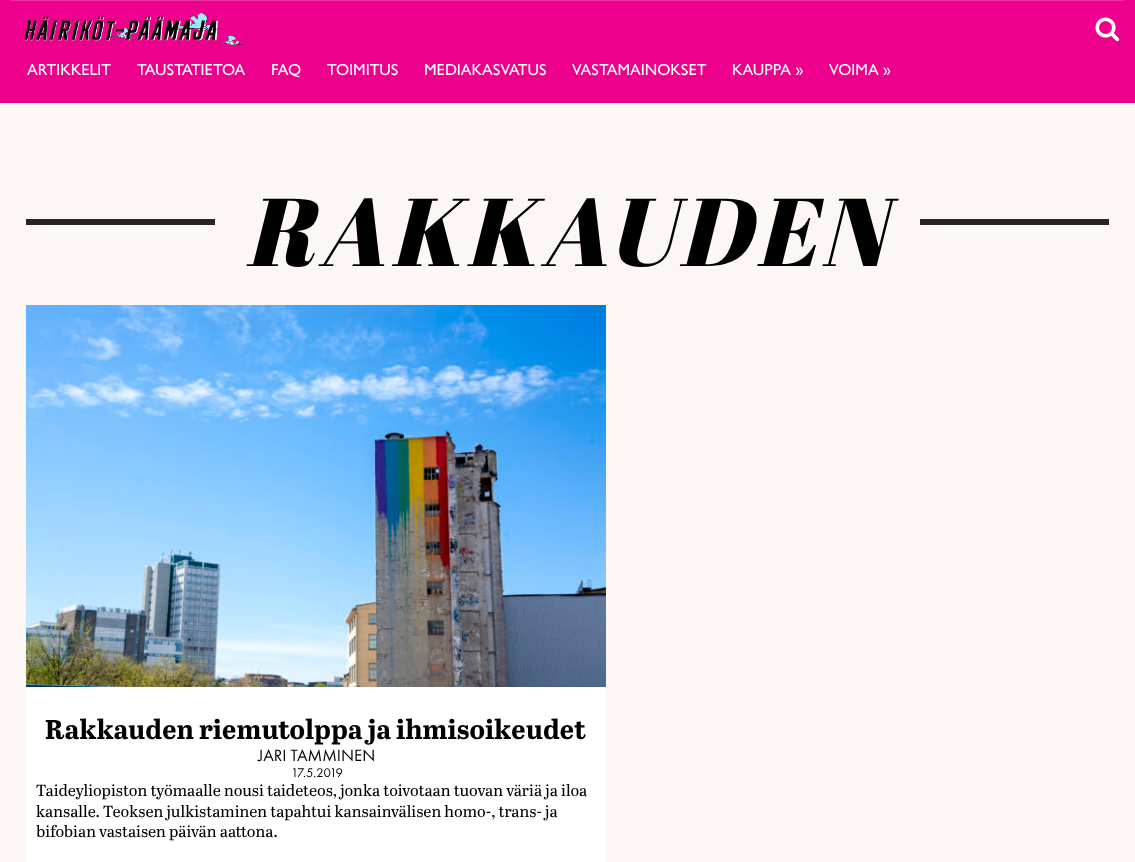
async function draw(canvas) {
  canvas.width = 1135
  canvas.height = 862
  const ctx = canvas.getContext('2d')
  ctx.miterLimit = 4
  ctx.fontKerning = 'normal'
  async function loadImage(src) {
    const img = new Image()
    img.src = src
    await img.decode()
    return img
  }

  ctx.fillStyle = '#fcf7f4'
  ctx.fillRect(0, 0, 1135, 862)
  ctx.fillStyle = '#ed008c'
  ctx.fillRect(0, 0, 1135, 103)
  ctx.drawImage(await loadImage('image0.png'), 1095, 17, 25, 25)
  ctx.fillStyle = '#f133a3'
  ctx.fillRect(11, 0, 1113, 1)
  ctx.drawImage(await loadImage('image1.png'), 24, 12, 220, 34)
  ctx.font = '500 16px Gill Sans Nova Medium'
  ctx.fillStyle = '#fff'
  ctx.fillText('ARTIKKELIT', 27, 75)
  ctx.fillText('TAUSTATIETOA', 137, 75)
  ctx.fillText('FAQ', 271, 75)
  ctx.fillText('TOIMITUS', 327, 75)
  ctx.fillText('MEDIAKASVATUS', 424, 75)
  ctx.fillText('VASTAMAINOKSET', 572, 75)
  ctx.fillText('KAUPPA »', 732, 75)
  ctx.fillText('VOIMA »', 829, 75)
  ctx.fillStyle = '#252525'
  ctx.fillRect(26, 219, 189, 6)
  ctx.letterSpacing = '5px'
  ctx.font = 'italic 96px Abril Fatface'
  ctx.fillStyle = '#000'
  ctx.fillText('RAKKAUDEN', 245, 266)
  ctx.fillStyle = '#252525'
  ctx.fillRect(920, 219, 189, 6)
  ctx.drawImage(await loadImage('image2.png'), 26, 305, 580, 382)
  ctx.fillStyle = '#fff'
  ctx.fillRect(26, 687, 580, 175)
  ctx.letterSpacing = '0px'
  ctx.font = 'bold 27.25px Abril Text'
  ctx.fillStyle = '#000'
  ctx.fillText('Rakkauden riemutolppa ja ihmisoikeudet', 45, 739)
  ctx.font = '17px Futura PT'
  ctx.fillText('JARI TAMMINEN', 258, 761)
  ctx.font = '13px Futura PT'
  ctx.fillText('17.5.2019', 291, 777)
  ctx.font = '16px Abril Text'
  ctx.fillText('Taideyliopiston työmaalle nousi taideteos, jonka toivotaan tuovan väriä ja iloa', 36, 796)
  ctx.fillText('kansalle. Teoksen julkistaminen tapahtui kansainvälisen homo-, trans- ja', 36, 817)
  ctx.fillText('bifobian vastaisen päivän aattona.', 36, 837)
}

draw(document.querySelector('canvas'))
